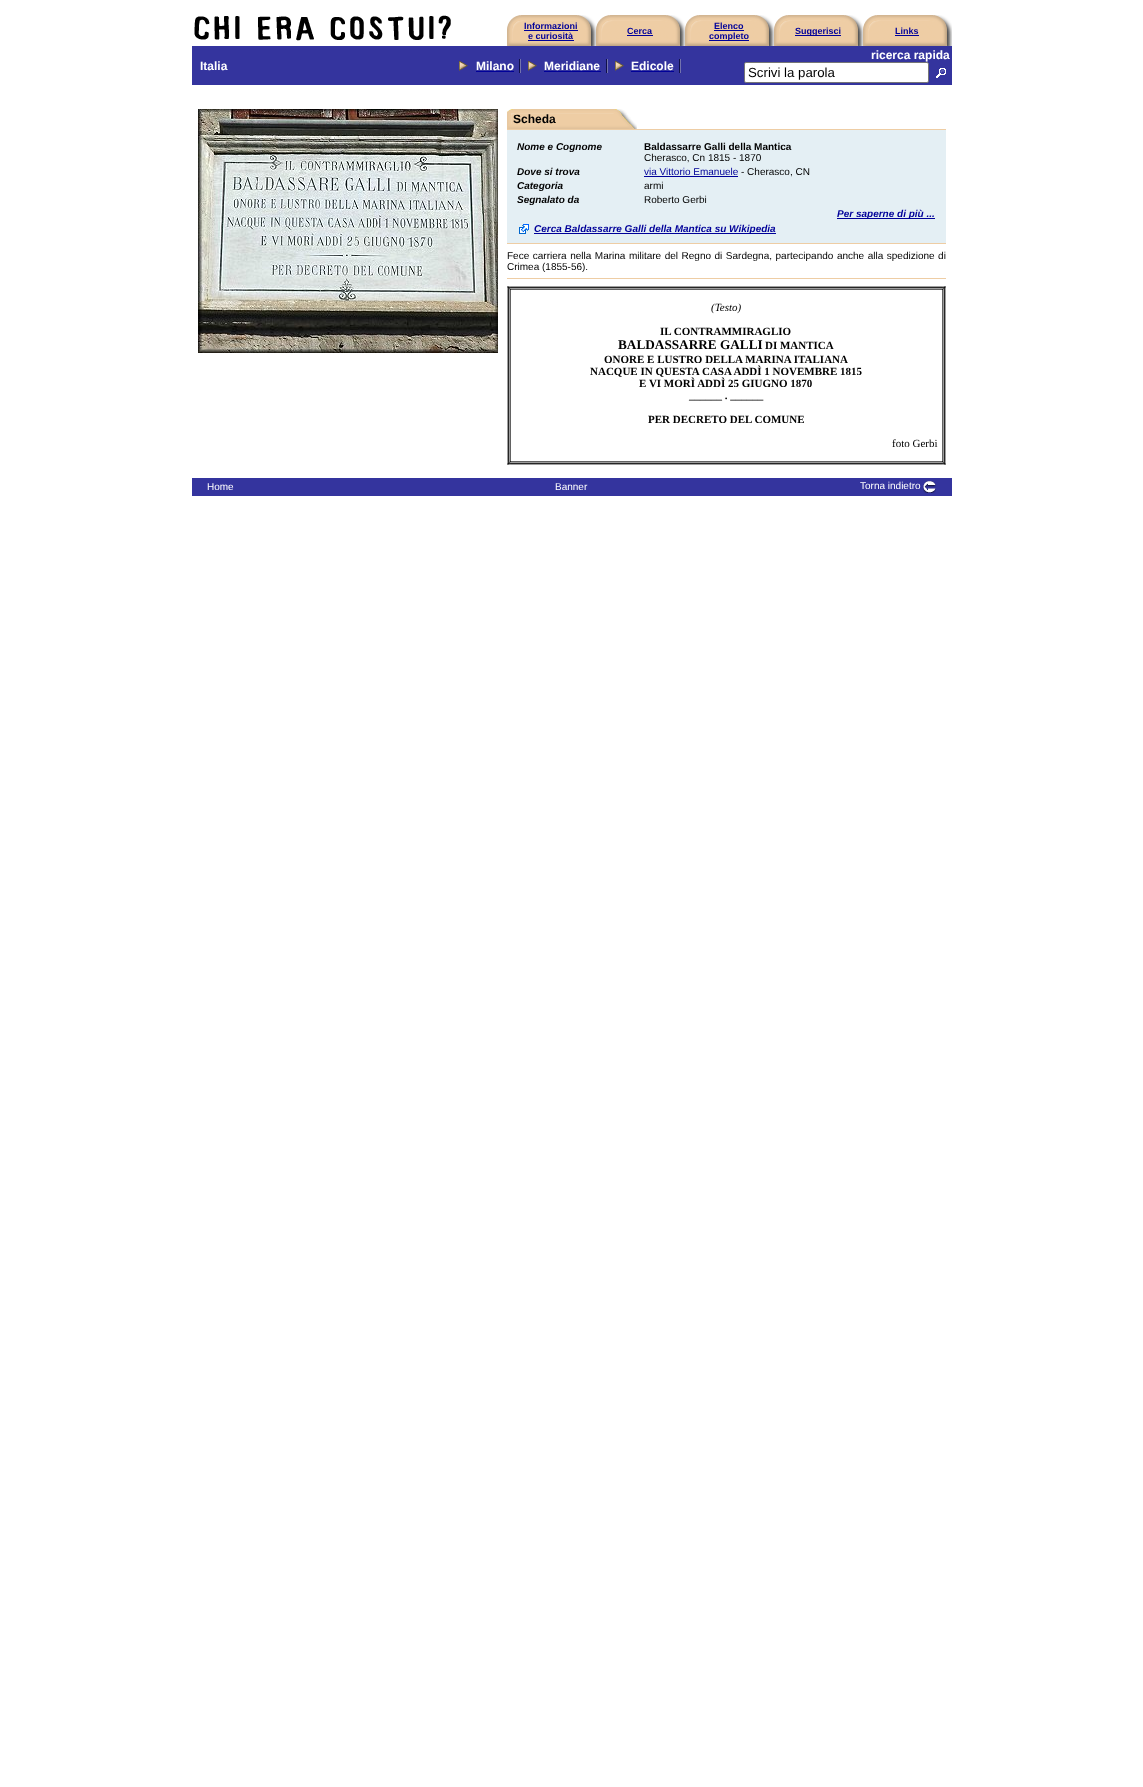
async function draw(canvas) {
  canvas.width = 1143
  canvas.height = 1787
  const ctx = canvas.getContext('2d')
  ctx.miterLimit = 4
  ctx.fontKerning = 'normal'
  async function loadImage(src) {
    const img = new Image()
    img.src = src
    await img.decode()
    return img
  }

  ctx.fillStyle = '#fff'
  ctx.fillRect(0, 0, 1143, 1787)
  ctx.drawImage(await loadImage('image0.png'), 194, 15, 257, 26)
  ctx.drawImage(await loadImage('image1.png'), 507, 15, 89, 31)
  ctx.font = 'bold 9px Liberation Sans'
  ctx.fillStyle = '#009'
  ctx.fillText('Informazioni', 524, 29)
  ctx.fillRect(524, 30, 54, 1)
  ctx.fillText('e curiosità', 528, 39)
  ctx.fillRect(528, 40, 46, 1)
  ctx.drawImage(await loadImage('image1.png'), 596, 15, 89, 31)
  ctx.fillText('Cerca', 627, 34)
  ctx.fillRect(627, 35, 26, 1)
  ctx.drawImage(await loadImage('image1.png'), 685, 15, 89, 31)
  ctx.fillText('Elenco', 714, 29)
  ctx.fillRect(714, 30, 30, 1)
  ctx.fillRect(709, 40, 40, 1)
  ctx.fillText('completo', 709, 39)
  ctx.drawImage(await loadImage('image1.png'), 774, 15, 89, 31)
  ctx.fillRect(795, 35, 46, 1)
  ctx.fillText('Suggerisci', 795, 34)
  ctx.drawImage(await loadImage('image1.png'), 863, 15, 89, 31)
  ctx.fillText('Links', 895, 34)
  ctx.fillRect(895, 35, 24, 1)
  ctx.fillStyle = '#34349e'
  ctx.fillRect(192, 46, 760, 39)
  ctx.font = 'bold 12px Liberation Sans'
  ctx.fillStyle = '#fff'
  ctx.fillText('Italia', 200, 70)
  ctx.drawImage(await loadImage('image2.png'), 459, 61, 9, 10)
  ctx.fillText('Milano', 476, 70)
  ctx.fillStyle = '#009'
  ctx.fillRect(476, 71, 38, 1)
  ctx.drawImage(await loadImage('image3.png'), 519, 59, 2, 14)
  ctx.drawImage(await loadImage('image2.png'), 528, 61, 9, 10)
  ctx.fillStyle = '#fff'
  ctx.fillText('Meridiane', 544, 70)
  ctx.fillStyle = '#009'
  ctx.fillRect(544, 71, 57, 1)
  ctx.drawImage(await loadImage('image3.png'), 606, 59, 2, 14)
  ctx.drawImage(await loadImage('image2.png'), 615, 61, 9, 10)
  ctx.fillStyle = '#fff'
  ctx.fillText('Edicole', 631, 70)
  ctx.fillStyle = '#009'
  ctx.fillRect(631, 71, 43, 1)
  ctx.drawImage(await loadImage('image3.png'), 679, 59, 2, 14)
  ctx.fillStyle = '#fff'
  ctx.fillText('ricerca rapida', 871, 59)
  ctx.beginPath()
  ctx.roundRect(744.5, 62.5, 184, 20, 1.5)
  ctx.fill()
  ctx.strokeStyle = '#767676'
  ctx.stroke()
  ctx.font = '13.25px Liberation Sans'
  ctx.fillStyle = '#000'
  ctx.fillText('Scrivi la parola', 748, 77)
  ctx.drawImage(await loadImage('image4.png'), 936, 68, 10, 10)
  ctx.drawImage(await loadImage('image5.png'), 198, 109, 300, 244)
  ctx.drawImage(await loadImage('image6.png'), 507, 109, 130, 20)
  ctx.font = 'bold 12px Liberation Sans'
  ctx.fillText('Scheda', 513, 123)
  ctx.fillStyle = '#eecda4'
  ctx.fillRect(507, 129, 439, 1)
  ctx.fillStyle = '#e4eff4'
  ctx.fillRect(507, 130, 439, 113)
  ctx.font = 'italic bold 10px Liberation Sans'
  ctx.fillStyle = '#000'
  ctx.fillText('Nome e Cognome', 517, 150)
  ctx.font = 'bold 10px Liberation Sans'
  ctx.fillText('Baldassarre Galli della Mantica', 644, 150)
  ctx.font = '10px Liberation Sans'
  ctx.fillText('Cherasco, Cn 1815 - 1870', 644, 161)
  ctx.font = 'italic bold 10px Liberation Sans'
  ctx.fillText('Dove si trova', 517, 175)
  ctx.font = '10px Liberation Sans'
  ctx.fillStyle = '#009'
  ctx.fillText('via Vittorio Emanuele', 644, 175)
  ctx.fillRect(644, 176, 94, 1)
  ctx.fillStyle = '#000'
  ctx.fillText('- Cherasco, CN', 741, 175)
  ctx.font = 'italic bold 10px Liberation Sans'
  ctx.fillText('Categoria', 517, 189)
  ctx.font = '10px Liberation Sans'
  ctx.fillText('armi', 644, 189)
  ctx.font = 'italic bold 10px Liberation Sans'
  ctx.fillText('Segnalato da', 517, 203)
  ctx.font = '10px Liberation Sans'
  ctx.fillText('Roberto Gerbi', 644, 203)
  ctx.fillStyle = '#009'
  ctx.fillRect(837, 218, 98, 1)
  ctx.font = 'italic bold 10px Liberation Sans'
  ctx.fillText('Per saperne di più ...', 837, 217)
  ctx.drawImage(await loadImage('image7.png'), 519, 224, 10, 10)
  ctx.fillRect(534, 233, 242, 1)
  ctx.fillText('Cerca Baldassarre Galli della Mantica su Wikipedia', 534, 232)
  ctx.fillStyle = '#eecda4'
  ctx.fillRect(507, 243, 439, 1)
  ctx.wordSpacing = '0.75px'
  ctx.font = '10px Liberation Sans'
  ctx.fillStyle = '#000'
  ctx.fillText('Fece carriera nella Marina militare del Regno di Sardegna, partecipando anche alla spedizione di', 507, 259)
  ctx.wordSpacing = '0px'
  ctx.fillText('Crimea (1855-56).', 507, 270)
  ctx.fillStyle = '#eecda4'
  ctx.fillRect(507, 278, 439, 1)
  ctx.drawImage(await loadImage('image8.png'), 507, 286, 4, 4)
  ctx.drawImage(await loadImage('image9.png'), 511, 286, 431, 4)
  ctx.drawImage(await loadImage('image10.png'), 942, 286, 4, 4)
  ctx.drawImage(await loadImage('image11.png'), 507, 290, 4, 171)
  ctx.font = 'italic 11px Liberation Serif'
  ctx.fillStyle = '#000'
  ctx.fillText('(Testo)', 711, 311)
  ctx.font = 'bold 11px Liberation Serif'
  ctx.fillText('IL CONTRAMMIRAGLIO', 660, 335)
  ctx.font = 'bold 13.25px Liberation Serif'
  ctx.fillText('BALDASSARRE GALLI', 618, 349)
  ctx.font = 'bold 11px Liberation Serif'
  ctx.fillText('DI MANTICA', 765, 349)
  ctx.fillText('ONORE E LUSTRO DELLA MARINA ITALIANA', 604, 363)
  ctx.fillText('NACQUE IN QUESTA CASA ADDÌ 1 NOVEMBRE 1815', 590, 375)
  ctx.fillText('E VI MORÌ ADDÌ 25 GIUGNO 1870', 639, 387)
  ctx.fillText('______ . ______', 689, 399)
  ctx.fillText('PER DECRETO DEL COMUNE', 648, 423)
  ctx.font = '11px Liberation Serif'
  ctx.fillText('foto Gerbi', 892, 447)
  ctx.drawImage(await loadImage('image12.png'), 942, 290, 4, 171)
  ctx.drawImage(await loadImage('image13.png'), 507, 461, 4, 4)
  ctx.drawImage(await loadImage('image14.png'), 511, 461, 431, 4)
  ctx.drawImage(await loadImage('image15.png'), 942, 461, 4, 4)
  ctx.fillStyle = '#34349e'
  ctx.fillRect(192, 478, 760, 18)
  ctx.font = '10px Liberation Sans'
  ctx.fillStyle = '#fff'
  ctx.fillText('Home', 207, 490)
  ctx.fillText('Banner', 555, 490)
  ctx.fillText('Torna indietro', 860, 489)
  ctx.drawImage(await loadImage('image16.png'), 923, 481, 13, 12)
}

draw(document.querySelector('canvas'))
